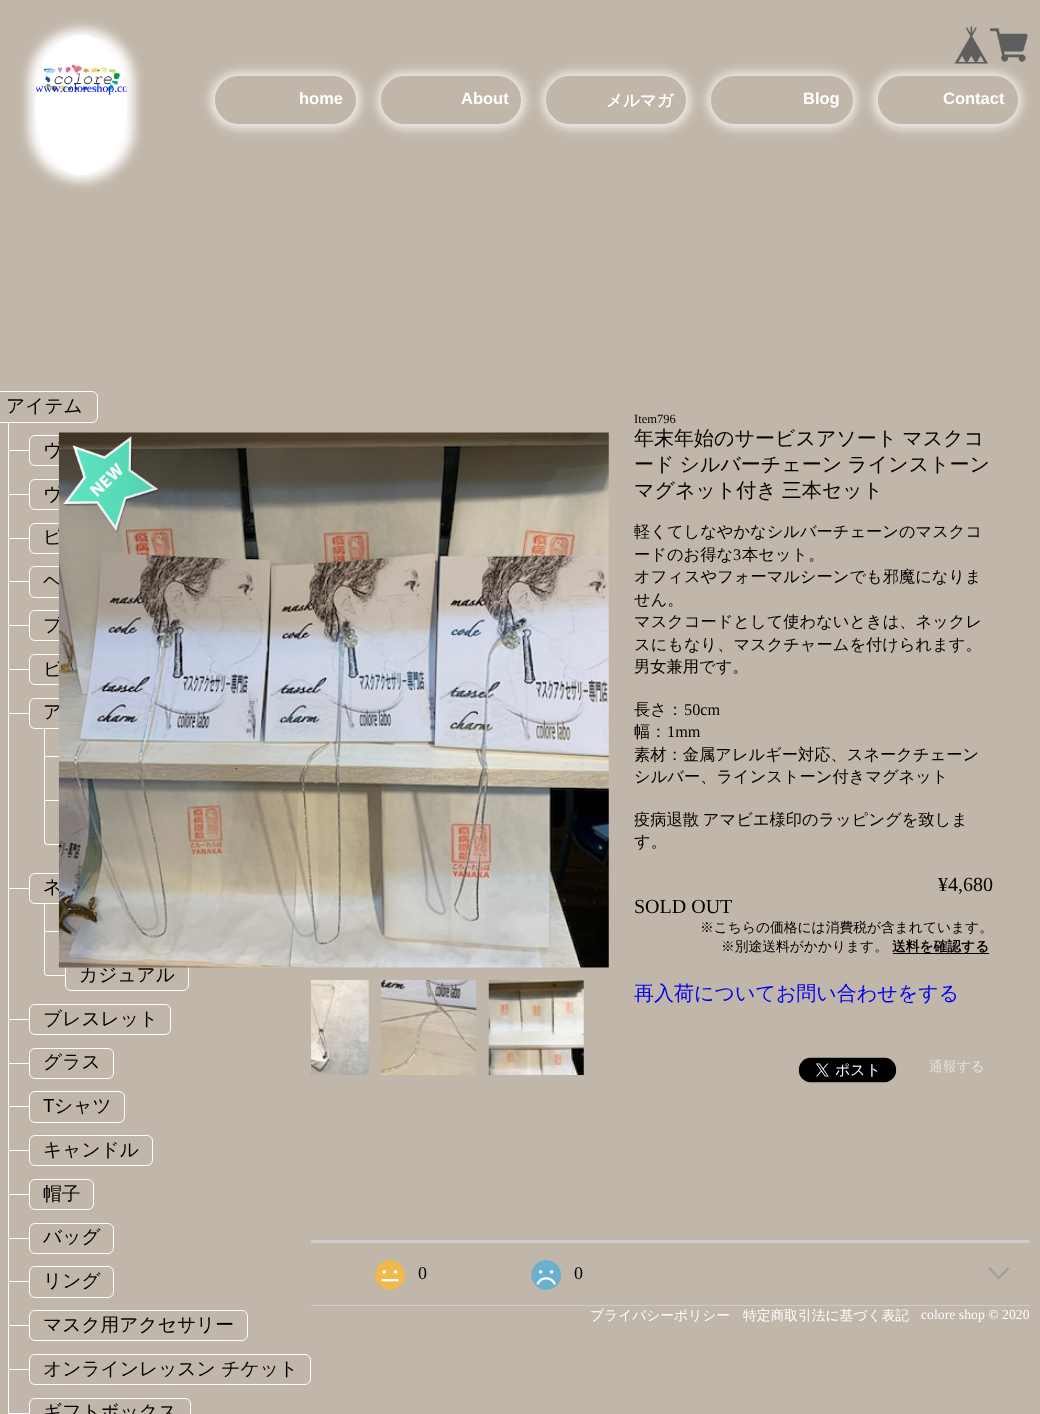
async function draw(canvas) {
  canvas.width = 1040
  canvas.height = 1414
  const ctx = canvas.getContext('2d')
  ctx.miterLimit = 4
  ctx.fontKerning = 'normal'
  async function loadImage(src) {
    const img = new Image()
    img.src = src
    await img.decode()
    return img
  }

  ctx.fillStyle = '#c0b6a9'
  ctx.fillRect(0, 0, 1040, 1414)
  ctx.save()
  ctx.beginPath()
  ctx.moveTo(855, 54)
  ctx.lineTo(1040, 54)
  ctx.lineTo(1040, 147)
  ctx.lineTo(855, 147)
  ctx.closePath()
  ctx.moveTo(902, 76)
  ctx.lineTo(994, 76)
  ctx.bezierCurveTo(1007.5, 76, 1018, 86.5, 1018, 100)
  ctx.bezierCurveTo(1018, 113.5, 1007.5, 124, 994, 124)
  ctx.lineTo(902, 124)
  ctx.bezierCurveTo(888.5, 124, 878, 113.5, 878, 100)
  ctx.bezierCurveTo(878, 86.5, 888.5, 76, 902, 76)
  ctx.closePath()
  ctx.clip('evenodd')
  ctx.fillStyle = '#ffffffd9'
  ctx.filter = 'blur(6px)'
  ctx.beginPath()
  ctx.roundRect(874, 73, 147, 55, 27.5)
  ctx.fill()
  ctx.filter = 'none'
  ctx.restore()
  ctx.drawImage(await loadImage('image0.png'), 954, 26, 34, 38)
  ctx.drawImage(await loadImage('image1.png'), 990, 28, 38, 34)
  ctx.fillStyle = '#fff'
  ctx.filter = 'blur(6px)'
  ctx.beginPath()
  ctx.roundRect(29, 29, 105, 152, 52.5)
  ctx.fill()
  ctx.filter = 'none'
  ctx.beginPath()
  ctx.ellipse(81, 105, 46, 70, 0, 0, 2 * Math.PI)
  ctx.fill()
  ctx.drawImage(await loadImage('image2.png'), 35, 62, 92, 33)
  ctx.save()
  ctx.beginPath()
  ctx.moveTo(81, 35)
  ctx.bezierCurveTo(107, 35, 127.5, 66.5, 127.5, 105)
  ctx.bezierCurveTo(127.5, 143.5, 107, 175, 81, 175)
  ctx.bezierCurveTo(55.5, 175, 35, 143.5, 35, 105)
  ctx.bezierCurveTo(35, 66.5, 55.5, 35, 81, 35)
  ctx.closePath()
  ctx.clip()
  ctx.font = '11.75px Liberation Serif'
  ctx.fillStyle = '#00e'
  ctx.fillText('www.coloreshop.co', 35, 92)
  ctx.restore()
  ctx.save()
  ctx.beginPath()
  ctx.moveTo(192, 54)
  ctx.lineTo(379, 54)
  ctx.lineTo(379, 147)
  ctx.lineTo(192, 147)
  ctx.closePath()
  ctx.moveTo(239, 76)
  ctx.lineTo(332, 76)
  ctx.bezierCurveTo(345.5, 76, 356, 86.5, 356, 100)
  ctx.bezierCurveTo(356, 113.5, 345.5, 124, 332, 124)
  ctx.lineTo(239, 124)
  ctx.bezierCurveTo(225.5, 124, 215, 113.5, 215, 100)
  ctx.bezierCurveTo(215, 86.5, 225.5, 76, 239, 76)
  ctx.closePath()
  ctx.clip('evenodd')
  ctx.fillStyle = '#ffffffd9'
  ctx.filter = 'blur(6px)'
  ctx.beginPath()
  ctx.roundRect(211, 73, 149, 55, 27.5)
  ctx.fill()
  ctx.filter = 'none'
  ctx.restore()
  ctx.font = 'bold 16.5px Liberation Sans'
  ctx.fillText('home', 299, 104)
  ctx.save()
  ctx.beginPath()
  ctx.moveTo(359, 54)
  ctx.lineTo(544, 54)
  ctx.lineTo(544, 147)
  ctx.lineTo(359, 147)
  ctx.closePath()
  ctx.moveTo(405, 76)
  ctx.lineTo(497, 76)
  ctx.bezierCurveTo(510.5, 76, 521, 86.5, 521, 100)
  ctx.bezierCurveTo(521, 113.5, 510.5, 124, 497, 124)
  ctx.lineTo(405, 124)
  ctx.bezierCurveTo(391.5, 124, 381, 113.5, 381, 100)
  ctx.bezierCurveTo(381, 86.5, 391.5, 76, 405, 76)
  ctx.closePath()
  ctx.clip('evenodd')
  ctx.fillStyle = '#ffffffd9'
  ctx.filter = 'blur(6px)'
  ctx.beginPath()
  ctx.roundRect(378, 73, 147, 55, 27.5)
  ctx.fill()
  ctx.filter = 'none'
  ctx.restore()
  ctx.fillText('About', 461, 104)
  ctx.save()
  ctx.beginPath()
  ctx.moveTo(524, 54)
  ctx.lineTo(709, 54)
  ctx.lineTo(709, 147)
  ctx.lineTo(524, 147)
  ctx.closePath()
  ctx.moveTo(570, 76)
  ctx.lineTo(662, 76)
  ctx.bezierCurveTo(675.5, 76, 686, 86.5, 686, 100)
  ctx.bezierCurveTo(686, 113.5, 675.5, 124, 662, 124)
  ctx.lineTo(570, 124)
  ctx.bezierCurveTo(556.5, 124, 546, 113.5, 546, 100)
  ctx.bezierCurveTo(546, 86.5, 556.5, 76, 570, 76)
  ctx.closePath()
  ctx.clip('evenodd')
  ctx.fillStyle = '#ffffffd9'
  ctx.filter = 'blur(6px)'
  ctx.beginPath()
  ctx.roundRect(543, 73, 147, 55, 27.5)
  ctx.fill()
  ctx.filter = 'none'
  ctx.restore()
  ctx.font = 'bold 16.5px WenQuanYi Zen Hei'
  ctx.fillText('メルマガ', 606, 106)
  ctx.save()
  ctx.beginPath()
  ctx.moveTo(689, 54)
  ctx.lineTo(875, 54)
  ctx.lineTo(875, 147)
  ctx.lineTo(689, 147)
  ctx.closePath()
  ctx.moveTo(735, 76)
  ctx.lineTo(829, 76)
  ctx.bezierCurveTo(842.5, 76, 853, 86.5, 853, 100)
  ctx.bezierCurveTo(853, 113.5, 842.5, 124, 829, 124)
  ctx.lineTo(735, 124)
  ctx.bezierCurveTo(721.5, 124, 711, 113.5, 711, 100)
  ctx.bezierCurveTo(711, 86.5, 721.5, 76, 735, 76)
  ctx.closePath()
  ctx.clip('evenodd')
  ctx.fillStyle = '#ffffffd9'
  ctx.filter = 'blur(6px)'
  ctx.beginPath()
  ctx.roundRect(708, 73, 148, 55, 27.5)
  ctx.fill()
  ctx.filter = 'none'
  ctx.restore()
  ctx.font = 'bold 16.5px Liberation Sans'
  ctx.fillText('Blog', 803, 104)
  ctx.fillText('Contact', 943, 104)
  ctx.beginPath()
  ctx.roundRect(-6.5, 391.5, 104, 31, 5.5)
  ctx.strokeStyle = '#fff'
  ctx.stroke()
  ctx.font = '500 18.75px WenQuanYi Zen Hei'
  ctx.fillStyle = '#000'
  ctx.fillText('アイテム', 6, 412)
  ctx.fillStyle = '#fff'
  ctx.fillRect(8, 423, 1, 991)
  ctx.fillRect(9, 450, 20, 1)
  ctx.beginPath()
  ctx.roundRect(29.5, 435.5, 199, 30, 5.5)
  ctx.stroke()
  ctx.fillStyle = '#000'
  ctx.fillText('ヴ', 43, 456)
  ctx.fillStyle = '#fff'
  ctx.fillRect(9, 494, 20, 1)
  ctx.beginPath()
  ctx.roundRect(29.5, 479.5, 199, 30, 5.5)
  ctx.stroke()
  ctx.fillStyle = '#000'
  ctx.fillText('ヴ', 43, 500)
  ctx.fillStyle = '#fff'
  ctx.fillRect(9, 538, 20, 1)
  ctx.beginPath()
  ctx.roundRect(29.5, 523.5, 199, 30, 5.5)
  ctx.stroke()
  ctx.fillStyle = '#000'
  ctx.fillText('ピ', 43, 543)
  ctx.fillStyle = '#fff'
  ctx.fillRect(9, 581, 20, 1)
  ctx.beginPath()
  ctx.roundRect(29.5, 566.5, 180, 31, 5.5)
  ctx.stroke()
  ctx.fillStyle = '#000'
  ctx.fillText('ヘ', 43, 587)
  ctx.fillStyle = '#fff'
  ctx.fillRect(9, 625, 20, 1)
  ctx.beginPath()
  ctx.roundRect(29.5, 610.5, 103, 30, 5.5)
  ctx.stroke()
  ctx.fillStyle = '#000'
  ctx.fillText('ブ', 43, 631)
  ctx.fillStyle = '#fff'
  ctx.fillRect(9, 669, 20, 1)
  ctx.beginPath()
  ctx.roundRect(29.5, 654.5, 275, 30, 5.5)
  ctx.stroke()
  ctx.fillStyle = '#000'
  ctx.fillText('ビ', 43, 675)
  ctx.fillStyle = '#fff'
  ctx.fillRect(9, 713, 20, 1)
  ctx.beginPath()
  ctx.roundRect(29.5, 698.5, 141, 30, 5.5)
  ctx.stroke()
  ctx.fillStyle = '#000'
  ctx.fillText('ア', 43, 718)
  ctx.fillStyle = '#fff'
  ctx.fillRect(44, 729, 1, 87)
  ctx.fillRect(45, 756, 20, 1)
  ctx.fillRect(45, 800, 20, 1)
  ctx.beginPath()
  ctx.moveTo(44, 816)
  ctx.lineTo(65, 816)
  ctx.lineTo(65, 845)
  ctx.lineTo(47.5, 845)
  ctx.bezierCurveTo(45.5, 845, 44, 843.5, 44, 841)
  ctx.closePath()
  ctx.moveTo(45, 816)
  ctx.lineTo(65, 816)
  ctx.lineTo(65, 844)
  ctx.lineTo(47.5, 844)
  ctx.bezierCurveTo(46, 844, 45, 842.5, 45, 841)
  ctx.closePath()
  ctx.fill('evenodd')
  ctx.fillRect(9, 888, 20, 1)
  ctx.beginPath()
  ctx.roundRect(29.5, 873.5, 123, 30, 5.5)
  ctx.stroke()
  ctx.fillStyle = '#000'
  ctx.fillText('ネ', 43, 893)
  ctx.fillStyle = '#fff'
  ctx.fillRect(44, 904, 1, 44)
  ctx.fillRect(45, 931, 20, 1)
  ctx.beginPath()
  ctx.moveTo(44, 947.5)
  ctx.lineTo(65, 947.5)
  ctx.lineTo(65, 976)
  ctx.lineTo(47.5, 976)
  ctx.bezierCurveTo(45.5, 976, 44, 974.5, 44, 972.5)
  ctx.closePath()
  ctx.moveTo(45, 947.5)
  ctx.lineTo(65, 947.5)
  ctx.lineTo(65, 975)
  ctx.lineTo(47.5, 975)
  ctx.bezierCurveTo(46, 975, 45, 974, 45, 972.5)
  ctx.closePath()
  ctx.fill('evenodd')
  ctx.beginPath()
  ctx.roundRect(65.5, 960.5, 123, 30, 5.5)
  ctx.stroke()
  ctx.fillStyle = '#000'
  ctx.fillText('カジュアル', 79, 981)
  ctx.fillStyle = '#fff'
  ctx.fillRect(9, 1019, 20, 1)
  ctx.beginPath()
  ctx.roundRect(29.5, 1004.5, 141, 30, 5.5)
  ctx.stroke()
  ctx.fillStyle = '#000'
  ctx.fillText('ブレスレット', 43, 1025)
  ctx.fillStyle = '#fff'
  ctx.fillRect(9, 1063, 20, 1)
  ctx.beginPath()
  ctx.roundRect(29.5, 1048.5, 84, 30, 5.5)
  ctx.stroke()
  ctx.fillStyle = '#000'
  ctx.fillText('グラス', 43, 1068)
  ctx.fillStyle = '#fff'
  ctx.fillRect(9, 1106, 20, 1)
  ctx.beginPath()
  ctx.roundRect(29.5, 1091.5, 95, 31, 5.5)
  ctx.stroke()
  ctx.font = '18.75px Liberation Sans'
  ctx.fillStyle = '#000'
  ctx.fillText('T', 43, 1112)
  ctx.font = '500 18.75px WenQuanYi Zen Hei'
  ctx.fillText('シャツ', 54, 1112)
  ctx.fillStyle = '#fff'
  ctx.fillRect(9, 1150, 20, 1)
  ctx.beginPath()
  ctx.roundRect(29.5, 1135.5, 123, 30, 5.5)
  ctx.stroke()
  ctx.fillStyle = '#000'
  ctx.fillText('キャンドル', 43, 1156)
  ctx.fillStyle = '#fff'
  ctx.fillRect(9, 1194, 20, 1)
  ctx.beginPath()
  ctx.roundRect(29.5, 1179.5, 64, 30, 5.5)
  ctx.stroke()
  ctx.fillStyle = '#000'
  ctx.fillText('帽子', 43, 1200)
  ctx.fillStyle = '#fff'
  ctx.fillRect(9, 1238, 20, 1)
  ctx.beginPath()
  ctx.roundRect(29.5, 1223.5, 84, 30, 5.5)
  ctx.stroke()
  ctx.fillStyle = '#000'
  ctx.fillText('バッグ', 43, 1243)
  ctx.fillStyle = '#fff'
  ctx.fillRect(9, 1281, 20, 1)
  ctx.beginPath()
  ctx.roundRect(29.5, 1266.5, 84, 31, 5.5)
  ctx.stroke()
  ctx.fillStyle = '#000'
  ctx.fillText('リング', 43, 1287)
  ctx.fillStyle = '#fff'
  ctx.fillRect(9, 1325, 20, 1)
  ctx.beginPath()
  ctx.roundRect(29.5, 1310.5, 218, 30, 5.5)
  ctx.stroke()
  ctx.fillStyle = '#000'
  ctx.fillText('マスク用アクセサリー', 43, 1331)
  ctx.fillStyle = '#fff'
  ctx.fillRect(9, 1369, 20, 1)
  ctx.beginPath()
  ctx.roundRect(29.5, 1354.5, 281, 30, 5.5)
  ctx.stroke()
  ctx.fillStyle = '#000'
  ctx.fillText('オンラインレッスン チケット', 43, 1375)
  ctx.fillStyle = '#fff'
  ctx.fillRect(9, 1413, 20, 1)
  ctx.beginPath()
  ctx.roundRect(29.5, 1398.5, 161, 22, 5.5)
  ctx.stroke()
  ctx.fillStyle = '#000'
  ctx.fillText('ギフトボックス', 43, 1418)
  ctx.drawImage(await loadImage('image3.png'), 58, 432, 551, 536)
  ctx.drawImage(await loadImage('image4.png'), 63, 436, 96, 97)
  ctx.drawImage(await loadImage('image5.png'), 311, 980, 58, 95)
  ctx.drawImage(await loadImage('image6.png'), 381, 980, 96, 95)
  ctx.drawImage(await loadImage('image7.png'), 488, 980, 96, 95)
  ctx.font = '12.5px Liberation Serif'
  ctx.fillText('Item796', 634, 423)
  ctx.wordSpacing = '-1px'
  ctx.font = '500 20px WenQuanYi Zen Hei'
  ctx.fillText('年末年始のサービスアソート マスクコ', 634, 445)
  ctx.fillText('ード シルバーチェーン ラインストーン', 634, 471)
  ctx.fillText('マグネット付き 三本セット', 634, 497)
  ctx.wordSpacing = '0px'
  ctx.font = '500 16.25px WenQuanYi Zen Hei'
  ctx.fillText('軽くてしなやかなシルバーチェーンのマスクコ', 634, 537)
  ctx.fillText('ードのお得な', 634, 560)
  ctx.font = '16.25px Liberation Serif'
  ctx.fillText('3', 733, 560)
  ctx.font = '500 16.25px WenQuanYi Zen Hei'
  ctx.fillText('本セット。', 742, 560)
  ctx.fillText('オフィスやフォーマルシーンでも邪魔になりま', 634, 582)
  ctx.fillText('せん。', 634, 605)
  ctx.fillText('マスクコードとして使わないときは、ネックレ', 634, 627)
  ctx.fillText('スにもなり、マスクチャームを付けられます。', 634, 650)
  ctx.fillText('男女兼用です。', 634, 672)
  ctx.fillText('長さ：', 634, 715)
  ctx.font = '16.25px Liberation Serif'
  ctx.fillText('50cm', 684, 715)
  ctx.font = '500 16.25px WenQuanYi Zen Hei'
  ctx.fillText('幅：', 634, 737)
  ctx.font = '16.25px Liberation Serif'
  ctx.fillText('1mm', 667, 737)
  ctx.font = '500 16.25px WenQuanYi Zen Hei'
  ctx.fillText('素材：金属アレルギー対応、スネークチェーン', 634, 760)
  ctx.fillText('シルバー、ラインストーン付きマグネット', 634, 782)
  ctx.wordSpacing = '-1px'
  ctx.fillText('疫病退散 アマビエ様印のラッピングを致しま', 634, 825)
  ctx.wordSpacing = '0px'
  ctx.fillText('す。', 634, 847)
  ctx.font = '20px Liberation Serif'
  ctx.fillText('¥4,680', 938, 891)
  ctx.fillText('SOLD OUT', 634, 913)
  ctx.font = '500 13.75px WenQuanYi Zen Hei'
  ctx.fillText('※こちらの価格には消費税が含まれています。', 700, 932)
  ctx.fillText('※別途送料がかかります。', 721, 951)
  ctx.fillRect(893, 953, 96, 1)
  ctx.font = 'bold 13.75px WenQuanYi Zen Hei'
  ctx.fillText('送料を確認する', 892, 951)
  ctx.font = '500 20px WenQuanYi Zen Hei'
  ctx.fillStyle = '#00e'
  ctx.fillText('再入荷についてお問い合わせをする', 634, 1000)
  ctx.drawImage(await loadImage('image8.png'), 798, 1057, 99, 26)
  ctx.font = '500 13.75px WenQuanYi Zen Hei'
  ctx.fillStyle = '#e1e1e1'
  ctx.fillText('通報する', 929, 1071)
  ctx.fillStyle = '#ccc'
  ctx.fillRect(311, 1240, 719, 3)
  ctx.fillRect(311, 1305, 719, 1)
  ctx.drawImage(await loadImage('image9.png'), 375, 1260, 30, 30)
  ctx.font = '18px Liberation Serif'
  ctx.fillStyle = '#000'
  ctx.fillText('0', 418, 1279)
  ctx.drawImage(await loadImage('image10.png'), 531, 1260, 30, 30)
  ctx.fillText('0', 574, 1279)
  ctx.fillStyle = '#a0a0a0'
  ctx.beginPath()
  ctx.moveTo(1007.5, 1267)
  ctx.lineTo(1009.5, 1269)
  ctx.lineTo(999, 1279.5)
  ctx.lineTo(997, 1278)
  ctx.closePath()
  ctx.fill()
  ctx.beginPath()
  ctx.moveTo(990, 1267)
  ctx.lineTo(1000.5, 1278)
  ctx.lineTo(999, 1279.5)
  ctx.lineTo(988, 1269)
  ctx.closePath()
  ctx.fill()
  ctx.font = '500 13.75px WenQuanYi Zen Hei'
  ctx.fillStyle = '#fff'
  ctx.fillText('プライバシーポリシー', 590, 1320)
  ctx.fillText('特定商取引法に基づく表記', 743, 1320)
  ctx.font = '13.75px Liberation Serif'
  ctx.fillText('colore shop © 2020', 921, 1319)
}

draw(document.querySelector('canvas'))
